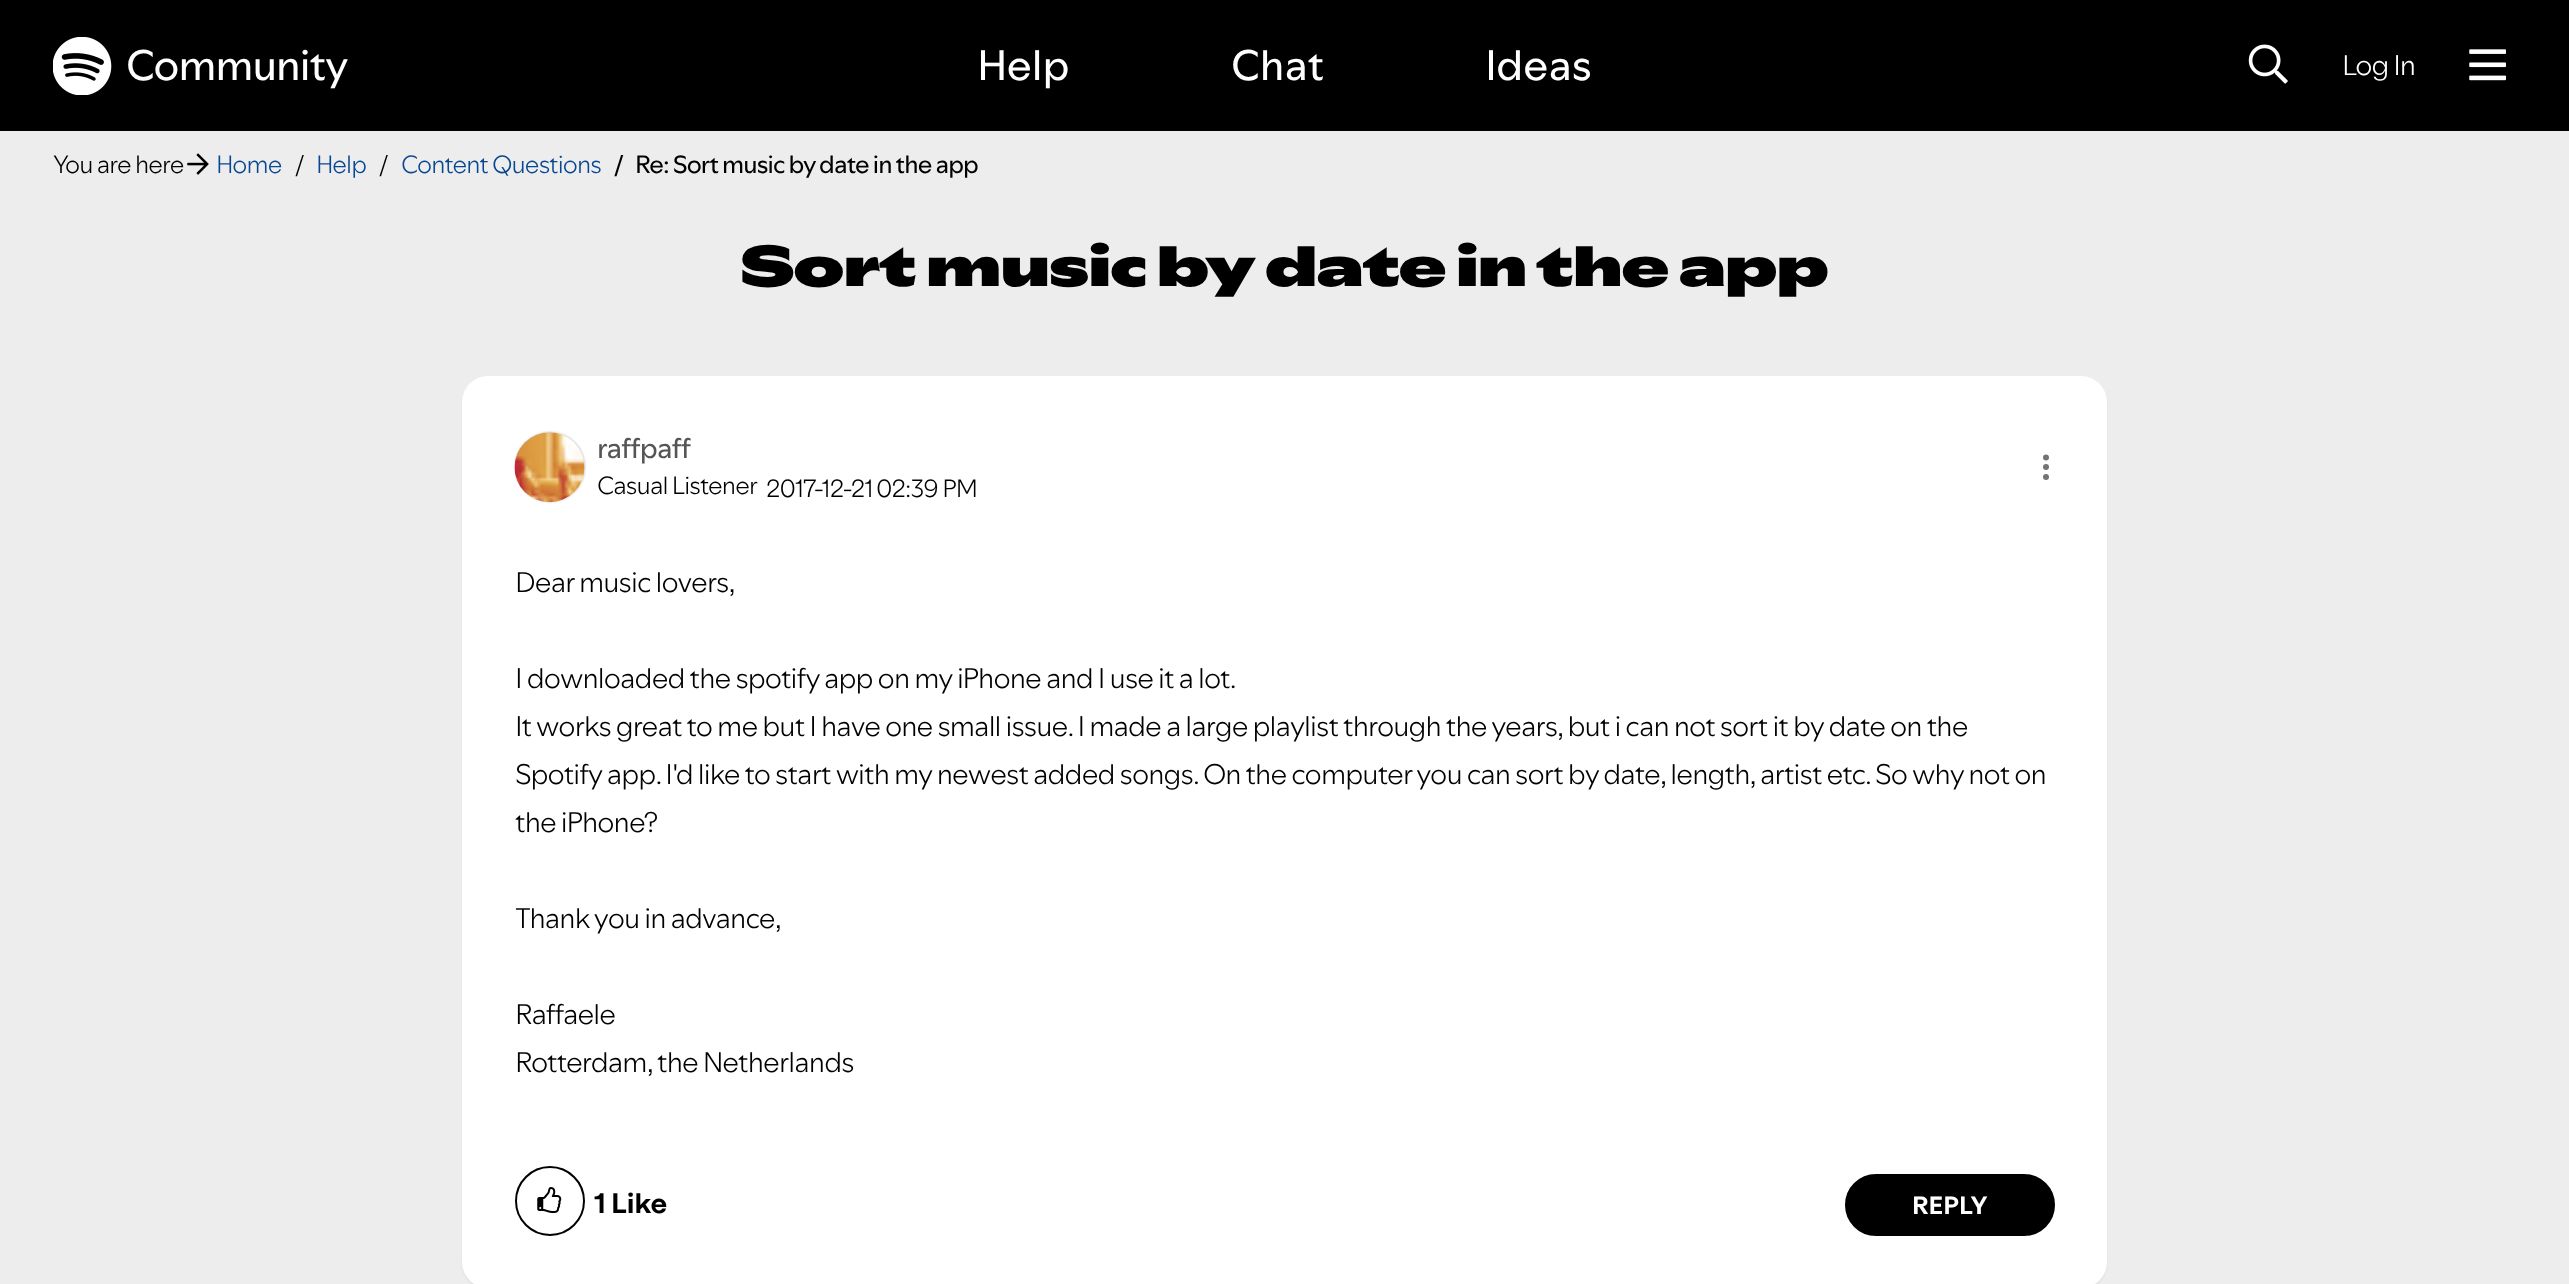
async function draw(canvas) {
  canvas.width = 2569
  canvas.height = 1284
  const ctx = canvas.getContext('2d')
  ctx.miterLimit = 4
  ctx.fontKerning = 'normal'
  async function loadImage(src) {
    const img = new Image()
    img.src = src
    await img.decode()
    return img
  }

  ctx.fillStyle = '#ededed'
  ctx.fillRect(0, 0, 2569, 1284)
  ctx.fillStyle = '#000'
  ctx.fillRect(0, 0, 2569, 131)
  ctx.drawImage(await loadImage('image0.png'), 53, 37, 59, 58)
  ctx.letterSpacing = '-0.88px'
  ctx.font = '42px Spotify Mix'
  ctx.fillStyle = '#fff'
  ctx.fillText('Community', 126, 80)
  ctx.letterSpacing = '0px'
  ctx.fillText('Help', 977, 80)
  ctx.fillText('Chat', 1231, 80)
  ctx.fillText('Ideas', 1485, 80)
  ctx.drawImage(await loadImage('image1.png'), 2248, 44, 40, 40)
  ctx.letterSpacing = '-0.88px'
  ctx.font = '300 28px Spotify Mix'
  ctx.fillText('Log In', 2342, 75)
  ctx.drawImage(await loadImage('image2.png'), 2469, 49, 37, 32)
  ctx.font = '300 24.5px Spotify Mix'
  ctx.fillStyle = '#000'
  ctx.fillText('You are here', 53, 173)
  ctx.drawImage(await loadImage('image3.png'), 187, 153, 22, 22)
  ctx.fillStyle = '#084791'
  ctx.fillText('Home', 216, 173)
  ctx.fillStyle = '#000'
  ctx.fillText('/', 295, 173)
  ctx.fillStyle = '#084791'
  ctx.fillText('Help', 316, 173)
  ctx.fillStyle = '#000'
  ctx.fillText('/', 379, 173)
  ctx.fillStyle = '#084791'
  ctx.fillText('Content Questions', 401, 173)
  ctx.font = '24.5px Spotify Mix'
  ctx.fillStyle = '#000'
  ctx.fillText('/', 614, 173)
  ctx.fillText('Re: Sort music by date in the app', 635, 173)
  ctx.font = '900 56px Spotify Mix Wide'
  ctx.fillText('Sort music by date in the app', 740, 286)
  ctx.fillStyle = '#0000000d'
  ctx.filter = 'blur(1px)'
  ctx.beginPath()
  ctx.roundRect(462, 378, 1645, 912, 26)
  ctx.fill()
  ctx.filter = 'none'
  ctx.fillStyle = '#fff'
  ctx.beginPath()
  ctx.roundRect(462, 376, 1645, 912, 26)
  ctx.fill()
  ctx.fillStyle = '#c4c4c4'
  ctx.filter = 'blur(1px)'
  ctx.beginPath()
  ctx.roundRect(515, 432, 70, 70, 35)
  ctx.fill()
  ctx.filter = 'none'
  ctx.drawImage(await loadImage('image4.png'), 514, 432, 71, 71)
  ctx.font = '28px Spotify Mix'
  ctx.fillStyle = '#555'
  ctx.fillText('raffpaff', 597, 458)
  ctx.font = '300 24.5px Spotify Mix'
  ctx.fillStyle = '#000'
  ctx.fillText('Casual Listener', 597, 494)
  ctx.fillText('2017-12-21', 766, 497)
  ctx.fillText('02:39 PM', 876, 497)
  ctx.fillStyle = '#747474'
  ctx.beginPath()
  ctx.arc(2046, 457.5, 3, 0, 2 * Math.PI)
  ctx.fill()
  ctx.beginPath()
  ctx.arc(2046, 467, 3, 0, 2 * Math.PI)
  ctx.fill()
  ctx.beginPath()
  ctx.arc(2046, 477, 3, 0, 2 * Math.PI)
  ctx.fill()
  ctx.font = '300 28px Spotify Mix'
  ctx.fillStyle = '#000'
  ctx.fillText('Dear music lovers,', 515, 592)
  ctx.fillText('I downloaded the spotify app on my iPhone and I use it a lot.', 515, 688)
  ctx.fillText('It works great to me but I have one small issue. I made a large playlist through the years, but i can not sort it by date on the', 515, 736)
  ctx.fillText('Spotify app. I\'d like to start with my newest added songs. On the computer you can sort by date, length, artist etc. So why not on', 515, 784)
  ctx.fillText('the iPhone?', 515, 832)
  ctx.fillText('Thank you in advance,', 515, 928)
  ctx.fillText('Raffaele', 515, 1024)
  ctx.fillText('Rotterdam, the Netherlands', 515, 1072)
  ctx.beginPath()
  ctx.arc(550, 1201, 34, 0, 2 * Math.PI)
  ctx.strokeStyle = '#000'
  ctx.lineWidth = 2
  ctx.stroke()
  ctx.drawImage(await loadImage('image5.png'), 537, 1187, 25, 26)
  ctx.letterSpacing = '0px'
  ctx.font = 'bold 28px Spotify Mix'
  ctx.fillText('1 Like', 594, 1213)
  ctx.beginPath()
  ctx.roundRect(1846, 1175, 208, 60, 30)
  ctx.fill()
  ctx.stroke()
  ctx.font = 'bold 24.5px Spotify Mix'
  ctx.fillStyle = '#fff'
  ctx.fillText('REPLY', 1912, 1214)
}

draw(document.querySelector('canvas'))
